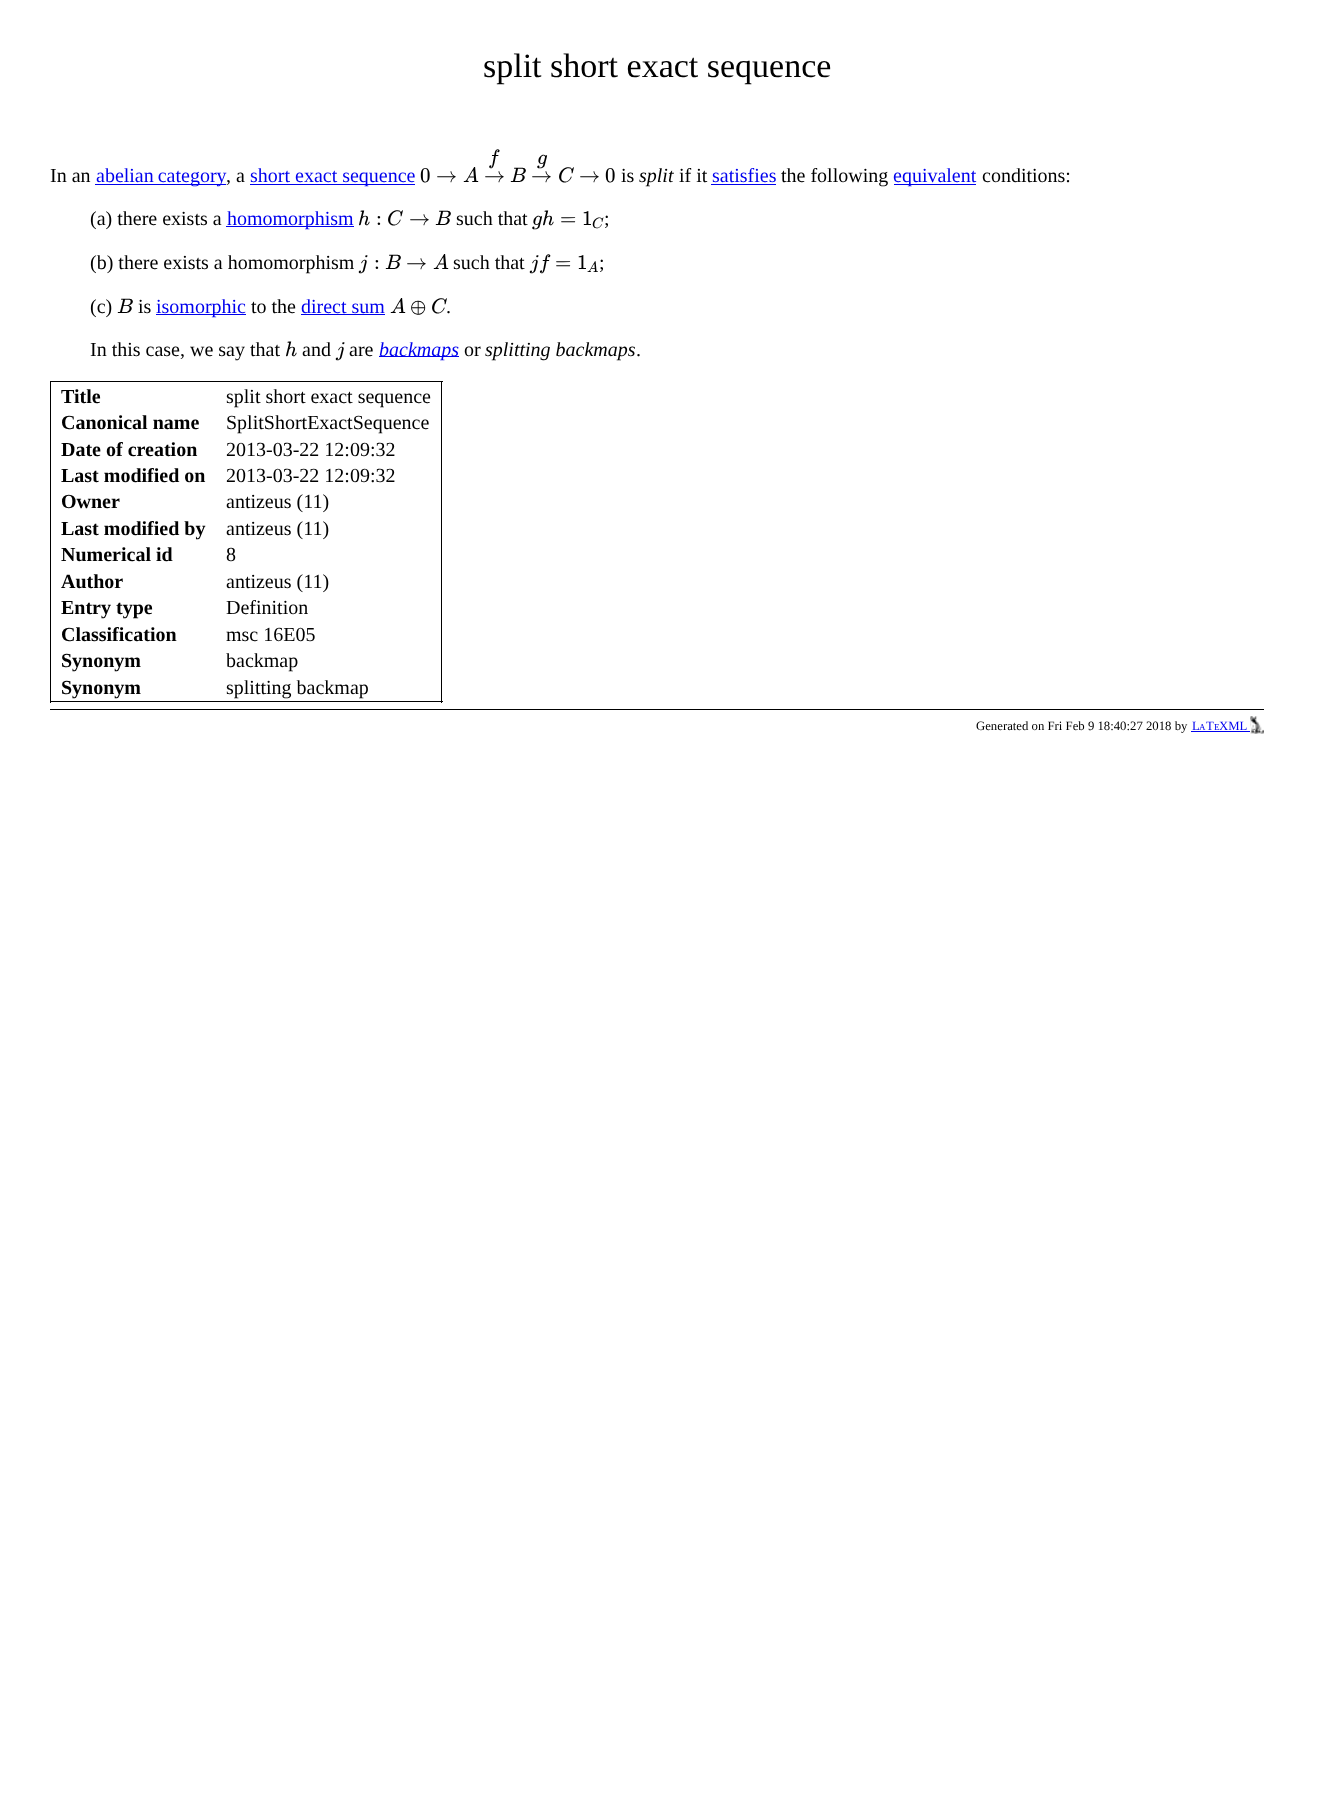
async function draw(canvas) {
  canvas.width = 1333
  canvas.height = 1793
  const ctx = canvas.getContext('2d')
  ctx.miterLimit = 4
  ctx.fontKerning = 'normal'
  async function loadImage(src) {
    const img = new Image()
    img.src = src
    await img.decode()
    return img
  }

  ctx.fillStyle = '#fff'
  ctx.fillRect(0, 0, 1333, 1793)
  ctx.font = '34px Liberation Serif'
  ctx.fillStyle = '#000'
  ctx.fillText('split short exact sequence', 483, 77)
  ctx.font = '20px Liberation Serif'
  ctx.fillText('In an', 50, 182)
  ctx.fillStyle = '#00e'
  ctx.fillRect(95, 184, 131, 1)
  ctx.wordSpacing = '-1px'
  ctx.fillText('abelian category', 96, 182)
  ctx.wordSpacing = '0px'
  ctx.fillStyle = '#000'
  ctx.fillText(', a', 226, 182)
  ctx.fillStyle = '#00e'
  ctx.fillRect(250, 184, 165, 1)
  ctx.fillText('short exact sequence', 250, 182)
  ctx.font = '21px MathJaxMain'
  ctx.fillStyle = '#000'
  ctx.fillText('0', 420, 182)
  ctx.fillText('→', 436, 182)
  ctx.font = 'italic 21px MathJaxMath'
  ctx.fillText('A', 463, 182)
  ctx.fillText('f', 488, 164)
  ctx.font = '21px MathJaxMain'
  ctx.fillText('→', 484, 182)
  ctx.font = 'italic 21px MathJaxMath'
  ctx.fillText('B', 510, 182)
  ctx.fillText('g', 537, 164)
  ctx.font = '21px MathJaxMain'
  ctx.fillText('→', 531, 182)
  ctx.font = 'italic 21px MathJaxMath'
  ctx.fillText('C', 558, 182)
  ctx.font = '21px MathJaxMain'
  ctx.fillText('→', 579, 182)
  ctx.fillText('0', 605, 182)
  ctx.font = '20px Liberation Serif'
  ctx.fillText('is', 621, 182)
  ctx.font = 'italic 20px Liberation Serif'
  ctx.fillText('split', 639, 182)
  ctx.font = '20px Liberation Serif'
  ctx.fillText('if it', 679, 182)
  ctx.fillStyle = '#00e'
  ctx.fillText('satisfies', 712, 182)
  ctx.fillRect(711, 184, 65, 1)
  ctx.fillStyle = '#000'
  ctx.fillText('the following', 781, 182)
  ctx.fillStyle = '#00e'
  ctx.fillRect(894, 184, 82, 1)
  ctx.fillText('equivalent', 893, 182)
  ctx.fillStyle = '#000'
  ctx.fillText('conditions:', 982, 182)
  ctx.fillText('(a) there exists a', 90, 225)
  ctx.fillStyle = '#00e'
  ctx.fillRect(226, 226, 128, 1)
  ctx.fillText('homomorphism', 227, 225)
  ctx.font = 'italic 21px MathJaxMath'
  ctx.fillStyle = '#000'
  ctx.fillText('h', 358, 225)
  ctx.font = '21px MathJaxMain'
  ctx.fillText(':', 376, 225)
  ctx.font = 'italic 21px MathJaxMath'
  ctx.fillText('C', 387, 225)
  ctx.font = '21px MathJaxMain'
  ctx.fillText('→', 409, 225)
  ctx.font = 'italic 21px MathJaxMath'
  ctx.fillText('B', 435, 225)
  ctx.font = '20px Liberation Serif'
  ctx.fillText('such that', 456, 225)
  ctx.font = 'italic 21px MathJaxMath'
  ctx.fillText('gh', 532, 225)
  ctx.font = '21px MathJaxMain'
  ctx.fillText('=', 560, 225)
  ctx.fillText('1', 582, 225)
  ctx.font = 'italic 15px MathJaxMath'
  ctx.fillText('C', 592, 228)
  ctx.font = '20px Liberation Serif'
  ctx.fillText(';', 604, 225)
  ctx.fillText('(b) there exists a homomorphism', 90, 269)
  ctx.font = 'italic 21px MathJaxMath'
  ctx.fillText('j', 359, 269)
  ctx.font = '21px MathJaxMain'
  ctx.fillText(':', 374, 269)
  ctx.font = 'italic 21px MathJaxMath'
  ctx.fillText('B', 385, 269)
  ctx.font = '21px MathJaxMain'
  ctx.fillText('→', 406, 269)
  ctx.font = 'italic 21px MathJaxMath'
  ctx.fillText('A', 433, 269)
  ctx.font = '20px Liberation Serif'
  ctx.fillText('such that', 453, 269)
  ctx.font = 'italic 21px MathJaxMath'
  ctx.fillText('jf', 530, 269)
  ctx.font = '21px MathJaxMain'
  ctx.fillText('=', 555, 269)
  ctx.fillText('1', 577, 269)
  ctx.font = 'italic 15px MathJaxMath'
  ctx.fillText('A', 587, 272)
  ctx.font = '20px Liberation Serif'
  ctx.fillText(';', 599, 269)
  ctx.fillText('(c)', 90, 313)
  ctx.font = 'italic 21px MathJaxMath'
  ctx.fillText('B', 117, 313)
  ctx.font = '20px Liberation Serif'
  ctx.fillText('is', 138, 313)
  ctx.fillStyle = '#00e'
  ctx.fillRect(156, 314, 90, 1)
  ctx.fillText('isomorphic', 156, 313)
  ctx.fillStyle = '#000'
  ctx.fillText('to the', 251, 313)
  ctx.fillStyle = '#00e'
  ctx.fillText('direct sum', 301, 313)
  ctx.fillRect(301, 314, 84, 1)
  ctx.font = 'italic 21px MathJaxMath'
  ctx.fillStyle = '#000'
  ctx.fillText('A', 390, 313)
  ctx.font = '21px MathJaxMain'
  ctx.fillText('⊕', 410, 313)
  ctx.font = 'italic 21px MathJaxMath'
  ctx.fillText('C', 431, 313)
  ctx.font = '20px Liberation Serif'
  ctx.fillText('.', 446, 313)
  ctx.fillText('In this case, we say that', 90, 356)
  ctx.font = 'italic 21px MathJaxMath'
  ctx.fillText('h', 285, 356)
  ctx.font = '20px Liberation Serif'
  ctx.fillText('and', 302, 356)
  ctx.font = 'italic 21px MathJaxMath'
  ctx.fillText('j', 336, 356)
  ctx.font = '20px Liberation Serif'
  ctx.fillText('are', 349, 356)
  ctx.fillStyle = '#00e'
  ctx.fillRect(379, 356, 80, 1)
  ctx.font = 'italic 20px Liberation Serif'
  ctx.fillText('backmaps', 379, 356)
  ctx.font = '20px Liberation Serif'
  ctx.fillStyle = '#000'
  ctx.fillText('or', 464, 356)
  ctx.font = 'italic 20px Liberation Serif'
  ctx.fillText('splitting backmaps', 485, 356)
  ctx.font = '20px Liberation Serif'
  ctx.fillText('.', 636, 356)
  ctx.fillRect(50, 381, 393, 1)
  ctx.fillRect(441, 409, 1, 294)
  ctx.fillRect(50, 701, 393, 1)
  ctx.fillRect(50, 409, 1, 294)
  ctx.fillRect(50, 381, 1, 29)
  ctx.font = 'bold 20px Liberation Serif'
  ctx.fillText('Title', 61, 403)
  ctx.fillRect(441, 381, 1, 29)
  ctx.font = '20px Liberation Serif'
  ctx.fillText('split short exact sequence', 226, 403)
  ctx.font = 'bold 20px Liberation Serif'
  ctx.fillText('Canonical name', 61, 429)
  ctx.font = '20px Liberation Serif'
  ctx.fillText('SplitShortExactSequence', 226, 429)
  ctx.font = 'bold 20px Liberation Serif'
  ctx.fillText('Date of creation', 61, 456)
  ctx.font = '20px Liberation Serif'
  ctx.fillText('2013-03-22 12:09:32', 226, 456)
  ctx.font = 'bold 20px Liberation Serif'
  ctx.fillText('Last modified on', 61, 482)
  ctx.font = '20px Liberation Serif'
  ctx.fillText('2013-03-22 12:09:32', 226, 482)
  ctx.font = 'bold 20px Liberation Serif'
  ctx.fillText('Owner', 61, 508)
  ctx.font = '20px Liberation Serif'
  ctx.fillText('antizeus (11)', 226, 508)
  ctx.font = 'bold 20px Liberation Serif'
  ctx.fillText('Last modified by', 61, 535)
  ctx.font = '20px Liberation Serif'
  ctx.fillText('antizeus (11)', 226, 535)
  ctx.font = 'bold 20px Liberation Serif'
  ctx.fillText('Numerical id', 61, 561)
  ctx.font = '20px Liberation Serif'
  ctx.fillText('8', 226, 561)
  ctx.font = 'bold 20px Liberation Serif'
  ctx.fillText('Author', 61, 588)
  ctx.font = '20px Liberation Serif'
  ctx.fillText('antizeus (11)', 226, 588)
  ctx.font = 'bold 20px Liberation Serif'
  ctx.fillText('Entry type', 61, 614)
  ctx.font = '20px Liberation Serif'
  ctx.fillText('Definition', 226, 614)
  ctx.font = 'bold 20px Liberation Serif'
  ctx.fillText('Classification', 61, 641)
  ctx.font = '20px Liberation Serif'
  ctx.fillText('msc 16E05', 226, 641)
  ctx.font = 'bold 20px Liberation Serif'
  ctx.fillText('Synonym', 61, 667)
  ctx.font = '20px Liberation Serif'
  ctx.fillText('backmap', 226, 667)
  ctx.font = 'bold 20px Liberation Serif'
  ctx.fillText('Synonym', 61, 694)
  ctx.font = '20px Liberation Serif'
  ctx.fillText('splitting backmap', 226, 694)
  ctx.fillRect(50, 709, 1214, 1)
  ctx.font = '12.75px Liberation Serif'
  ctx.fillText('Generated on Fri Feb 9 18:40:27 2018 by', 976, 730)
  ctx.fillStyle = '#00e'
  ctx.fillText('L', 1192, 730)
  ctx.font = '9px Liberation Serif'
  ctx.fillText('A', 1199, 730)
  ctx.fillRect(1191, 731, 59, 1)
  ctx.font = '12.75px Liberation Serif'
  ctx.fillText('T', 1206, 730)
  ctx.font = '9px Liberation Serif'
  ctx.fillText('E', 1214, 730)
  ctx.font = '12.75px Liberation Serif'
  ctx.fillText('XML', 1219, 730)
  ctx.drawImage(await loadImage('image0.png'), 1250, 716, 14, 18)
}

draw(document.querySelector('canvas'))
